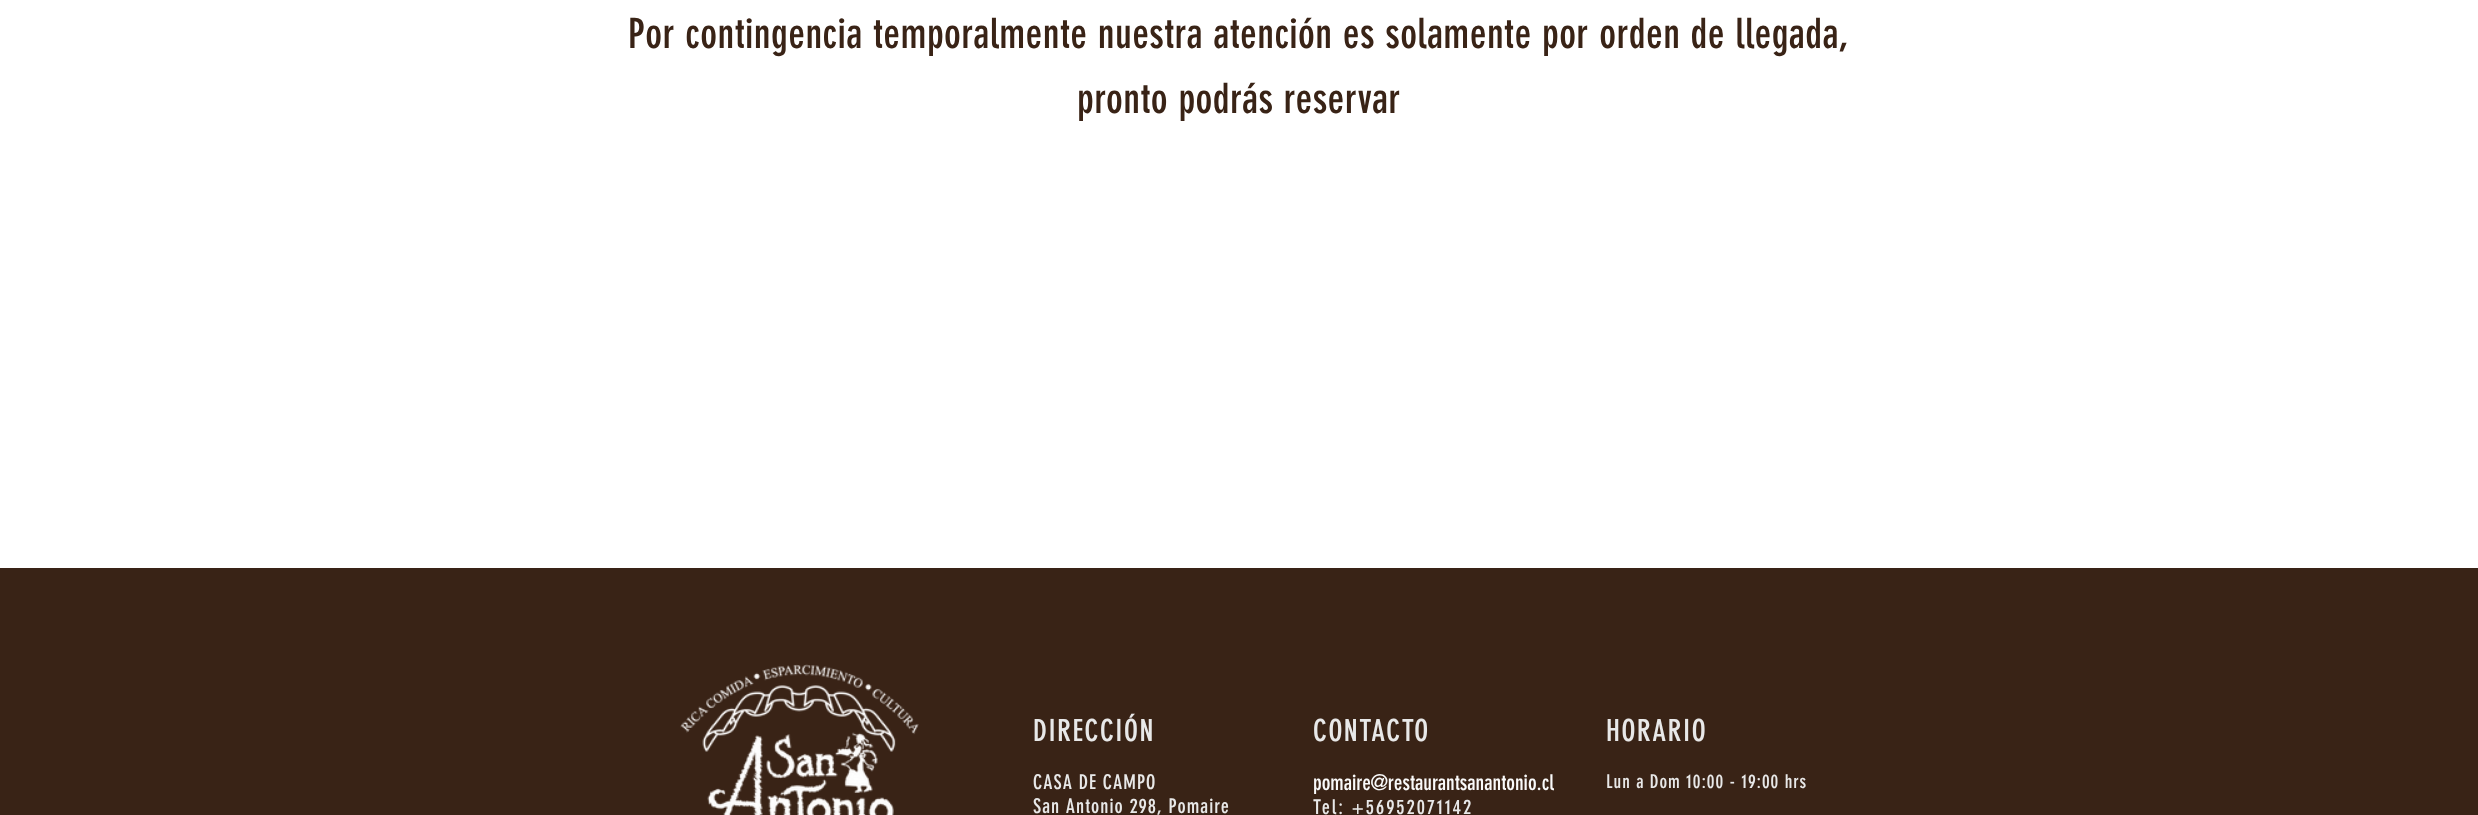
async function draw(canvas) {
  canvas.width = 2478
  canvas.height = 815
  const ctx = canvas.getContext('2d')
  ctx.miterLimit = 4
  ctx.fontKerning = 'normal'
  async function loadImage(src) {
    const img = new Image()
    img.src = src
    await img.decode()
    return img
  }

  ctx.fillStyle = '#fff'
  ctx.fillRect(0, 0, 2478, 815)
  ctx.letterSpacing = '0.4px'
  ctx.font = '41.25px "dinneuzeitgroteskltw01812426"'
  ctx.fillStyle = '#392316'
  ctx.fillText('Por contingencia temporalmente nuestra atención es solamente por orden de llegada,', 628, 48)
  ctx.fillText('pronto podrás reservar', 1077, 113)
  ctx.fillRect(0, 568, 2478, 247)
  ctx.drawImage(await loadImage('image0.png'), 680, 664, 239, 151)
  ctx.letterSpacing = '1.5px'
  ctx.font = '30px "dinneuzeitgroteskltw01812426"'
  ctx.fillStyle = '#e8e8e8'
  ctx.fillText('DIRECCIÓN', 1033, 741)
  ctx.letterSpacing = '1px'
  ctx.font = '20px "dinneuzeitgroteskltw01812426"'
  ctx.fillText('CASA DE CAMPO', 1033, 789)
  ctx.fillText('San Antonio 298, Pomaire', 1033, 813)
  ctx.letterSpacing = '1.5px'
  ctx.font = '30px "dinneuzeitgroteskltw01812426"'
  ctx.fillText('CONTACTO', 1313, 741)
  ctx.letterSpacing = '0px'
  ctx.font = '21.25px "dinneuzeitgroteskltw01812426"'
  ctx.fillStyle = '#fafafa'
  ctx.fillText('pomaire@restaurantsanantonio.cl', 1313, 790)
  ctx.letterSpacing = '2px'
  ctx.font = '20px "dinneuzeitgroteskltw01812426"'
  ctx.fillStyle = '#e8e8e8'
  ctx.fillText('Tel: +56952071142', 1313, 814)
  ctx.letterSpacing = '1.5px'
  ctx.font = '30px "dinneuzeitgroteskltw01812426"'
  ctx.fillText('HORARIO', 1606, 741)
  ctx.letterSpacing = '0.95px'
  ctx.font = '18.75px "dinneuzeitgroteskltw01812426"'
  ctx.fillText('Lun a Dom 10:00 - 19:00 hrs', 1606, 788)
}

draw(document.querySelector('canvas'))
